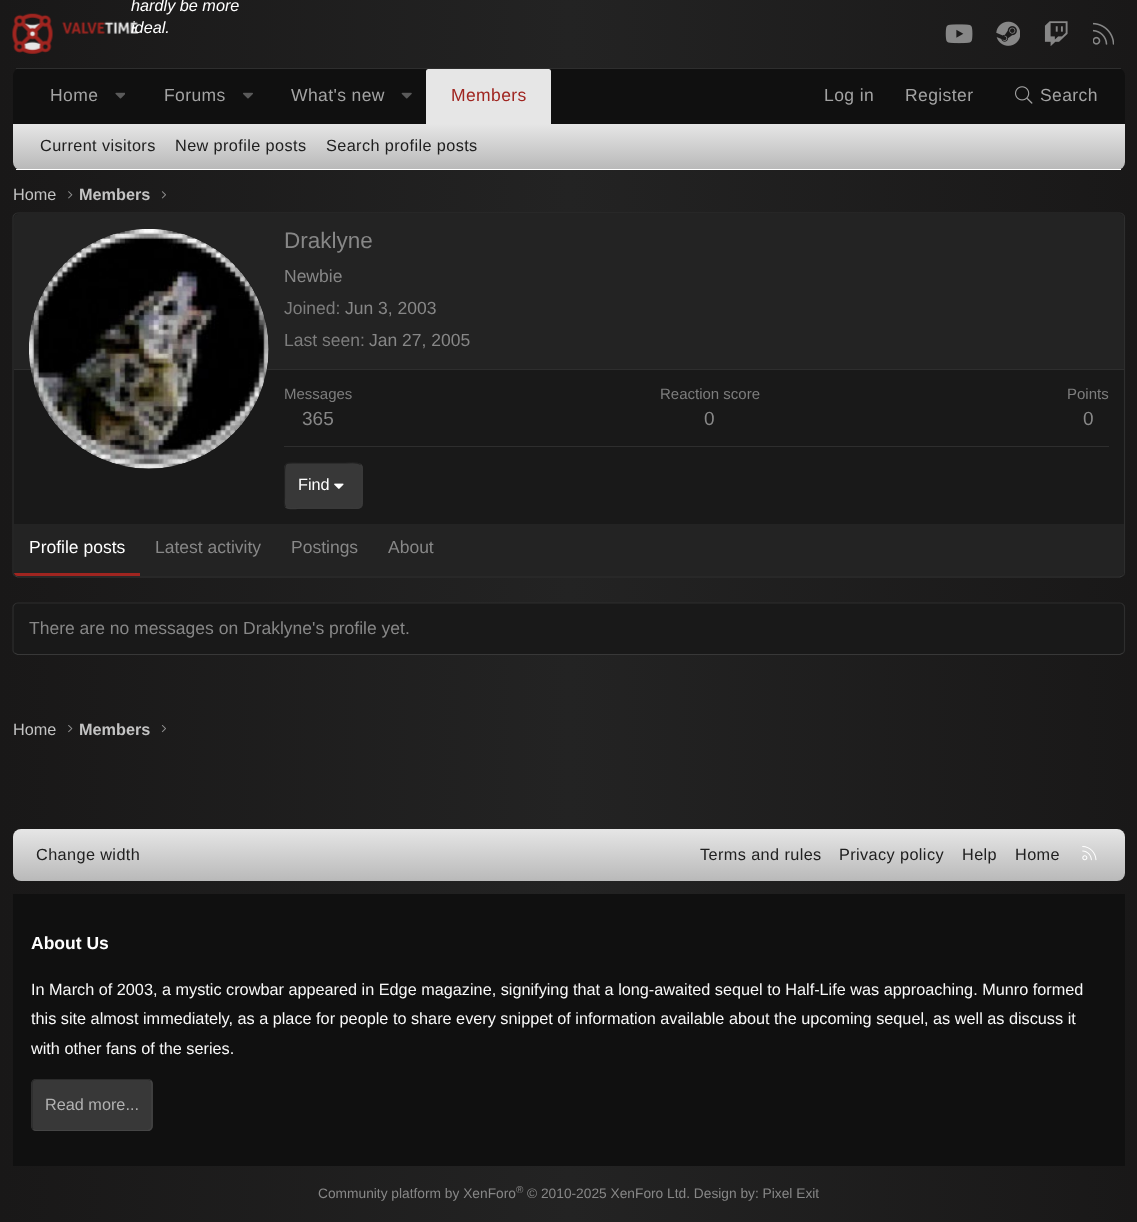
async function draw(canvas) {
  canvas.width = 1137
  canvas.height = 1222
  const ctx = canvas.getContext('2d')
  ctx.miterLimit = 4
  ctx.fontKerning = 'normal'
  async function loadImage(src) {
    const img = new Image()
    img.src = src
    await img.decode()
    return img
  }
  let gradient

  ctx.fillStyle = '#fff'
  ctx.fillRect(0, 0, 1137, 1222)
  gradient = ctx.createLinearGradient(0, 611, 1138, 611)
  gradient.addColorStop(0, '#191818')
  gradient.addColorStop(0.5, '#232323')
  gradient.addColorStop(1, '#191818')
  ctx.fillStyle = gradient
  ctx.fillRect(0, 0, 1137, 1222)
  ctx.drawImage(await loadImage('image0.png'), 12, 13, 126, 41)
  ctx.font = 'italic 16.25px Liberation Sans'
  ctx.fillStyle = '#fff'
  ctx.fillText('hardly be more', 131, 11)
  ctx.fillText('ideal.', 131, 33)
  ctx.drawImage(await loadImage('image1.png'), 945, 24, 28, 20)
  ctx.drawImage(await loadImage('image2.png'), 996, 21, 24, 25)
  ctx.drawImage(await loadImage('image3.png'), 1044, 21, 24, 25)
  ctx.drawImage(await loadImage('image4.png'), 1093, 22, 21, 23)
  ctx.fillStyle = '#101010'
  ctx.beginPath()
  ctx.roundRect(13, 68, 1112, 56, [8, 8, 0, 0])
  ctx.fill()
  ctx.fillStyle = '#2e2e2e'
  ctx.fillRect(16, 68, 1105, 1)
  ctx.letterSpacing = '0.4px'
  ctx.font = '17.5px Liberation Sans'
  ctx.fillStyle = '#a3a3a3'
  ctx.fillText('Home', 50, 101)
  ctx.drawImage(await loadImage('image5.png'), 115, 92, 10, 7)
  ctx.fillText('Forums', 164, 101)
  ctx.drawImage(await loadImage('image6.png'), 243, 92, 10, 7)
  ctx.fillText('What\'s new', 291, 101)
  ctx.drawImage(await loadImage('image7.png'), 401, 92, 11, 7)
  ctx.fillStyle = '#e6e6e6'
  ctx.beginPath()
  ctx.roundRect(426, 69, 125, 55, [2.5, 2.5, 0, 0])
  ctx.fill()
  ctx.fillStyle = '#a02520'
  ctx.fillText('Members', 451, 101)
  ctx.fillStyle = '#a3a3a3'
  ctx.fillText('Log in', 824, 101)
  ctx.fillText('Register', 905, 101)
  ctx.drawImage(await loadImage('image8.png'), 1015, 86, 18, 18)
  ctx.fillText('Search', 1040, 101)
  ctx.save()
  ctx.beginPath()
  ctx.roundRect(13, 124, 1112, 46, [0, 0, 8, 8])
  ctx.clip()
  gradient = ctx.createLinearGradient(569, 124, 569, 169)
  gradient.addColorStop(0, '#e6e6e6')
  gradient.addColorStop(1, '#b9b9b9')
  ctx.fillStyle = gradient
  ctx.fillRect(13, 124, 1112, 45)
  ctx.restore()
  ctx.fillStyle = '#fff'
  ctx.fillRect(16, 169, 1105, 1)
  ctx.font = '16.25px Liberation Sans'
  ctx.fillStyle = '#202020'
  ctx.fillText('Current visitors', 40, 151)
  ctx.fillText('New profile posts', 175, 151)
  ctx.fillText('Search profile posts', 326, 151)
  ctx.letterSpacing = '0px'
  ctx.fillStyle = '#c3c3c3'
  ctx.fillText('Home', 13, 200)
  ctx.drawImage(await loadImage('image9.png'), 68, 191, 5, 8)
  ctx.font = 'bold 16.25px Liberation Sans'
  ctx.fillText('Members', 79, 200)
  ctx.drawImage(await loadImage('image10.png'), 161, 191, 5, 8)
  ctx.fillStyle = '#191919'
  ctx.beginPath()
  ctx.roundRect(13, 213, 1112, 365, 5)
  ctx.fill()
  ctx.beginPath()
  ctx.moveTo(1123, 575.5)
  ctx.lineTo(1120, 577)
  ctx.lineTo(17.5, 577)
  ctx.lineTo(14.5, 575.5)
  ctx.strokeStyle = '#383838'
  ctx.lineWidth = 1.2
  ctx.stroke()
  ctx.beginPath()
  ctx.moveTo(14.5, 575.5)
  ctx.bezierCurveTo(13.5, 575, 13, 573.5, 13, 572.5)
  ctx.lineTo(13, 217.5)
  ctx.bezierCurveTo(13, 216.5, 13.5, 215, 14.5, 214.5)
  ctx.bezierCurveTo(15, 213.5, 16.5, 213, 17.5, 213)
  ctx.lineTo(1120, 213)
  ctx.bezierCurveTo(1121, 213, 1122.5, 213.5, 1123, 214.5)
  ctx.bezierCurveTo(1124, 215, 1124.5, 216.5, 1124.5, 217.5)
  ctx.lineTo(1124.5, 572.5)
  ctx.bezierCurveTo(1124.5, 573.5, 1124, 575, 1123, 575.5)
  ctx.strokeStyle = '#2e2e2e'
  ctx.stroke()
  ctx.fillStyle = '#232323'
  ctx.beginPath()
  ctx.roundRect(14, 214, 1110, 156, [4, 4, 0, 0])
  ctx.fill()
  ctx.fillStyle = '#2e2e2e'
  ctx.fillRect(14, 369, 1110, 1)
  ctx.fillStyle = '#191919'
  ctx.beginPath()
  ctx.arc(149, 349, 120, 0, 2 * Math.PI)
  ctx.fill()
  ctx.drawImage(await loadImage('image11.png'), 29, 229, 240, 240)
  ctx.font = '22.5px Liberation Sans'
  ctx.fillStyle = '#878787'
  ctx.fillText('Draklyne', 284, 248)
  ctx.font = '17.5px Liberation Sans'
  ctx.fillText('Newbie', 284, 282)
  ctx.fillStyle = '#7d7d7d'
  ctx.fillText('Joined:', 284, 314)
  ctx.fillStyle = '#878787'
  ctx.fillText('Jun 3, 2003', 345, 314)
  ctx.fillStyle = '#7d7d7d'
  ctx.fillText('Last seen:', 284, 346)
  ctx.fillStyle = '#878787'
  ctx.fillText('Jan 27, 2005', 369, 346)
  ctx.font = '15px Liberation Sans'
  ctx.fillStyle = '#7d7d7d'
  ctx.fillText('Messages', 284, 399)
  ctx.font = '19px Liberation Sans'
  ctx.fillStyle = '#878787'
  ctx.fillText('365', 302, 425)
  ctx.font = '15px Liberation Sans'
  ctx.fillStyle = '#7d7d7d'
  ctx.fillText('Reaction score', 660, 399)
  ctx.font = '19px Liberation Sans'
  ctx.fillStyle = '#878787'
  ctx.fillText('0', 704, 425)
  ctx.font = '15px Liberation Sans'
  ctx.fillStyle = '#7d7d7d'
  ctx.fillText('Points', 1067, 399)
  ctx.font = '19px Liberation Sans'
  ctx.fillStyle = '#878787'
  ctx.fillText('0', 1083, 425)
  ctx.fillStyle = '#2e2e2e'
  ctx.fillRect(284, 446, 825, 1)
  ctx.fillStyle = '#383838'
  ctx.beginPath()
  ctx.roundRect(284, 463, 79, 46, 5)
  ctx.fill()
  ctx.beginPath()
  ctx.moveTo(360.5, 464.5)
  ctx.bezierCurveTo(363, 466.5, 362, 471, 362, 473.5)
  ctx.lineTo(362, 497.5)
  ctx.bezierCurveTo(362, 511, 360.5, 508, 346, 508)
  ctx.lineTo(300, 508)
  ctx.bezierCurveTo(299.5, 508, 289, 510, 285.5, 507)
  ctx.strokeStyle = '#3b3b3b'
  ctx.stroke()
  ctx.beginPath()
  ctx.moveTo(285.5, 507)
  ctx.bezierCurveTo(283.5, 504.5, 284.5, 500, 284.5, 497.5)
  ctx.lineTo(284.5, 473.5)
  ctx.bezierCurveTo(284.5, 460.5, 286, 463, 300, 463)
  ctx.lineTo(346, 463)
  ctx.bezierCurveTo(346.5, 463, 357.5, 461.5, 360.5, 464.5)
  ctx.strokeStyle = '#212121'
  ctx.stroke()
  ctx.font = '16.25px Liberation Sans'
  ctx.fillStyle = '#fff'
  ctx.fillText('Find', 298, 490)
  ctx.drawImage(await loadImage('image12.png'), 334, 483, 10, 6)
  ctx.fillStyle = '#232323'
  ctx.beginPath()
  ctx.roundRect(14, 524, 1110, 52, [0, 0, 4, 4])
  ctx.fill()
  ctx.save()
  ctx.beginPath()
  ctx.roundRect(14, 524, 1110, 52, [0, 0, 4, 4])
  ctx.clip()
  ctx.fillStyle = '#a02520'
  ctx.fillRect(14, 573, 126, 3)
  ctx.restore()
  ctx.font = '17.5px Liberation Sans'
  ctx.fillStyle = '#fff'
  ctx.fillText('Profile posts', 29, 553)
  ctx.fillStyle = '#878787'
  ctx.fillText('Latest activity', 155, 553)
  ctx.fillText('Postings', 291, 553)
  ctx.fillText('About', 388, 553)
  ctx.fillStyle = '#191919'
  ctx.beginPath()
  ctx.roundRect(13, 603, 1112, 52, 5)
  ctx.fill()
  ctx.beginPath()
  ctx.moveTo(1123, 653)
  ctx.lineTo(1120, 654.5)
  ctx.lineTo(17.5, 654.5)
  ctx.lineTo(14.5, 653)
  ctx.strokeStyle = '#383838'
  ctx.stroke()
  ctx.beginPath()
  ctx.moveTo(14.5, 653)
  ctx.bezierCurveTo(13.5, 652.5, 13, 651, 13, 650)
  ctx.lineTo(13, 607.5)
  ctx.bezierCurveTo(13, 606.5, 13.5, 605, 14.5, 604.5)
  ctx.bezierCurveTo(15, 603.5, 16.5, 603, 17.5, 603)
  ctx.lineTo(1120, 603)
  ctx.bezierCurveTo(1121, 603, 1122.5, 603.5, 1123, 604.5)
  ctx.bezierCurveTo(1124, 605, 1124.5, 606.5, 1124.5, 607.5)
  ctx.lineTo(1124.5, 650)
  ctx.bezierCurveTo(1124.5, 651, 1124, 652.5, 1123, 653)
  ctx.strokeStyle = '#2e2e2e'
  ctx.stroke()
  ctx.fillStyle = '#878787'
  ctx.fillText('There are no messages on Draklyne\'s profile yet.', 29, 634)
  ctx.font = '16.25px Liberation Sans'
  ctx.fillStyle = '#c3c3c3'
  ctx.fillText('Home', 13, 735)
  ctx.drawImage(await loadImage('image13.png'), 68, 725, 5, 8)
  ctx.font = 'bold 16.25px Liberation Sans'
  ctx.fillText('Members', 79, 735)
  ctx.drawImage(await loadImage('image14.png'), 161, 725, 5, 8)
  gradient = ctx.createLinearGradient(569, 829, 569, 881)
  gradient.addColorStop(0, '#e6e6e6')
  gradient.addColorStop(1, '#b9b9b9')
  ctx.fillStyle = gradient
  ctx.beginPath()
  ctx.roundRect(13, 829, 1112, 52, 8)
  ctx.fill()
  ctx.letterSpacing = '0.4px'
  ctx.font = '16.25px Liberation Sans'
  ctx.fillStyle = '#202020'
  ctx.fillText('Change width', 36, 860)
  ctx.fillText('Terms and rules', 700, 860)
  ctx.fillText('Privacy policy', 839, 860)
  ctx.fillText('Help', 962, 860)
  ctx.fillText('Home', 1015, 860)
  ctx.drawImage(await loadImage('image15.png'), 1082, 846, 15, 15)
  ctx.fillStyle = '#101010'
  ctx.fillRect(13, 894, 1112, 272)
  ctx.letterSpacing = '0px'
  ctx.font = 'bold 17.5px Liberation Sans'
  ctx.fillStyle = '#fff'
  ctx.fillText('About Us', 31, 949)
  ctx.font = '16.25px Liberation Sans'
  ctx.fillStyle = '#f9f9f9'
  ctx.fillText('In March of 2003, a mystic crowbar appeared in Edge magazine, signifying that a long-awaited sequel to Half-Life was approaching. Munro formed', 31, 995)
  ctx.fillText('this site almost immediately, as a place for people to share every snippet of information available about the upcoming sequel, as well as discuss it', 31, 1024)
  ctx.fillText('with other fans of the series.', 31, 1054)
  ctx.fillStyle = '#383838'
  ctx.beginPath()
  ctx.roundRect(31, 1079, 122, 52, 5)
  ctx.fill()
  ctx.beginPath()
  ctx.moveTo(150.5, 1080.5)
  ctx.bezierCurveTo(151.5, 1081.5, 152, 1082.5, 152, 1084)
  ctx.lineTo(152, 1126)
  ctx.bezierCurveTo(152, 1127.5, 151.5, 1128.5, 150.5, 1129.5)
  ctx.bezierCurveTo(150, 1130, 148.5, 1130.5, 147.5, 1130.5)
  ctx.lineTo(36, 1130.5)
  ctx.bezierCurveTo(35, 1130.5, 34, 1130, 33, 1129.5)
  ctx.strokeStyle = '#454545'
  ctx.stroke()
  ctx.beginPath()
  ctx.moveTo(33, 1129.5)
  ctx.bezierCurveTo(32.5, 1128.5, 32, 1127.5, 32, 1126)
  ctx.lineTo(32, 1084)
  ctx.bezierCurveTo(32, 1082.5, 32.5, 1081.5, 33, 1080.5)
  ctx.bezierCurveTo(34, 1080, 35, 1079.5, 36, 1079.5)
  ctx.lineTo(147.5, 1079.5)
  ctx.bezierCurveTo(148.5, 1079.5, 150, 1080, 150.5, 1080.5)
  ctx.strokeStyle = '#2b2b2b'
  ctx.stroke()
  ctx.fillStyle = '#b2b2b2'
  ctx.fillText('Read more...', 45, 1110)
  ctx.font = '13.75px Liberation Sans'
  ctx.fillStyle = '#878787'
  ctx.fillText('Community platform by XenForo', 318, 1198)
  ctx.font = '10px Liberation Sans'
  ctx.fillText('®', 516, 1193)
  ctx.font = '13.75px Liberation Sans'
  ctx.fillText('© 2010-2025 XenForo Ltd. Design by: Pixel Exit', 527, 1198)
}

draw(document.querySelector('canvas'))
